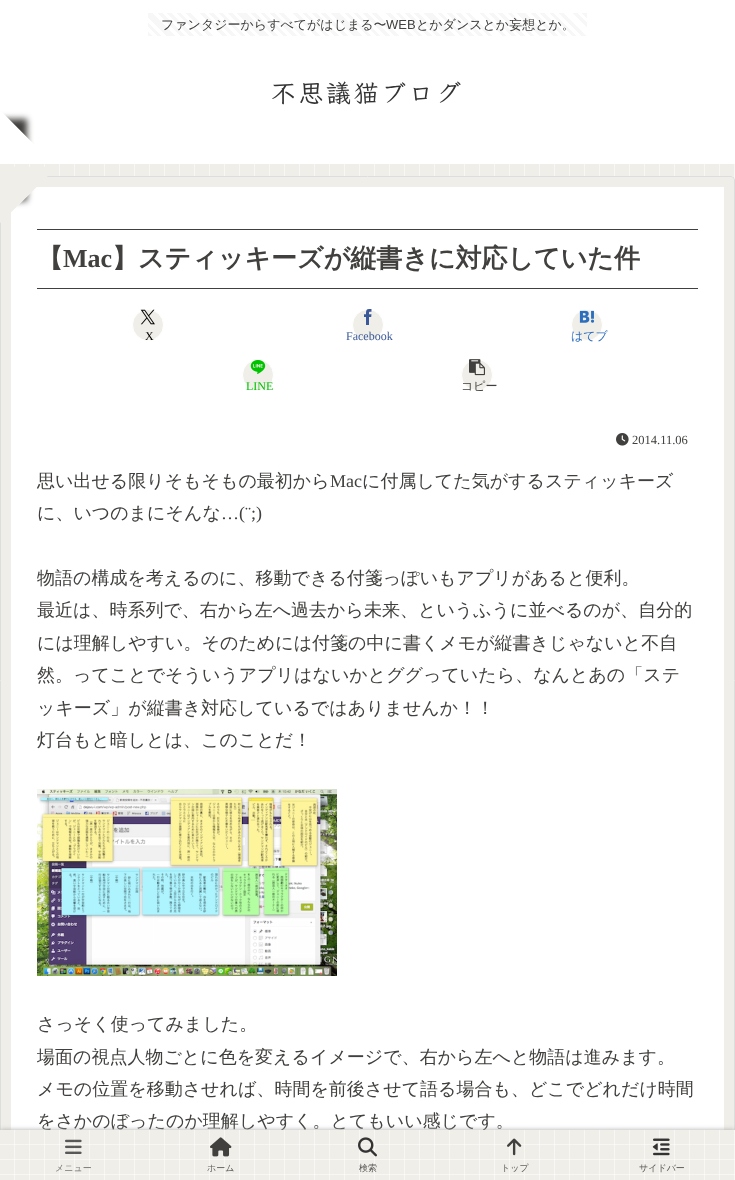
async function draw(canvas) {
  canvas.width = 735
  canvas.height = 1180
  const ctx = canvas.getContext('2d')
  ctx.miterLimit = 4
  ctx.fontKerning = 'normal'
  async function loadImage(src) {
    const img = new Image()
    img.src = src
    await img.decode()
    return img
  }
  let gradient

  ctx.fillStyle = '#f0eee8'
  ctx.fillRect(0, 0, 735, 1180)
  ctx.drawImage(await loadImage('image0.png'), 14, 164, 721, 16)
  ctx.fillStyle = '#fff'
  ctx.fillRect(0, 0, 735, 164)
  gradient = ctx.createLinearGradient(252, 140, 485, -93)
  gradient.addColorStop(0, '#f7f7f7')
  gradient.addColorStop(0.01, '#f7f7f7')
  gradient.addColorStop(0.01, '#fff')
  gradient.addColorStop(0.02, '#fff')
  gradient.addColorStop(0.02, '#f7f7f7')
  gradient.addColorStop(0.03, '#f7f7f7')
  gradient.addColorStop(0.03, '#fff')
  gradient.addColorStop(0.04, '#fff')
  gradient.addColorStop(0.04, '#f7f7f7')
  gradient.addColorStop(0.05, '#f7f7f7')
  gradient.addColorStop(0.05, '#fff')
  gradient.addColorStop(0.05, '#f7f7f7')
  gradient.addColorStop(0.06, '#f7f7f7')
  gradient.addColorStop(0.06, '#fff')
  gradient.addColorStop(0.07, '#fff')
  gradient.addColorStop(0.07, '#f7f7f7')
  gradient.addColorStop(0.08, '#f7f7f7')
  gradient.addColorStop(0.08, '#fff')
  gradient.addColorStop(0.09, '#fff')
  gradient.addColorStop(0.09, '#f7f7f7')
  gradient.addColorStop(0.1, '#f7f7f7')
  gradient.addColorStop(0.1, '#fff')
  gradient.addColorStop(0.11, '#fff')
  gradient.addColorStop(0.11, '#f7f7f7')
  gradient.addColorStop(0.12, '#f7f7f7')
  gradient.addColorStop(0.12, '#fff')
  gradient.addColorStop(0.13, '#fff')
  gradient.addColorStop(0.13, '#f7f7f7')
  gradient.addColorStop(0.14, '#f7f7f7')
  gradient.addColorStop(0.14, '#fff')
  gradient.addColorStop(0.15, '#fff')
  gradient.addColorStop(0.15, '#f7f7f7')
  gradient.addColorStop(0.15, '#fff')
  gradient.addColorStop(0.16, '#fff')
  gradient.addColorStop(0.16, '#f7f7f7')
  gradient.addColorStop(0.17, '#f7f7f7')
  gradient.addColorStop(0.17, '#fff')
  gradient.addColorStop(0.18, '#fff')
  gradient.addColorStop(0.18, '#f7f7f7')
  gradient.addColorStop(0.19, '#f7f7f7')
  gradient.addColorStop(0.19, '#fff')
  gradient.addColorStop(0.2, '#fff')
  gradient.addColorStop(0.2, '#f7f7f7')
  gradient.addColorStop(0.21, '#f7f7f7')
  gradient.addColorStop(0.21, '#fff')
  gradient.addColorStop(0.22, '#fff')
  gradient.addColorStop(0.22, '#f7f7f7')
  gradient.addColorStop(0.23, '#f7f7f7')
  gradient.addColorStop(0.23, '#fff')
  gradient.addColorStop(0.24, '#fff')
  gradient.addColorStop(0.24, '#f7f7f7')
  gradient.addColorStop(0.25, '#f7f7f7')
  gradient.addColorStop(0.25, '#fff')
  gradient.addColorStop(0.25, '#f7f7f7')
  gradient.addColorStop(0.26, '#f7f7f7')
  gradient.addColorStop(0.26, '#fff')
  gradient.addColorStop(0.27, '#fff')
  gradient.addColorStop(0.27, '#f7f7f7')
  gradient.addColorStop(0.28, '#f7f7f7')
  gradient.addColorStop(0.28, '#fff')
  gradient.addColorStop(0.29, '#fff')
  gradient.addColorStop(0.29, '#f7f7f7')
  gradient.addColorStop(0.3, '#f7f7f7')
  gradient.addColorStop(0.3, '#fff')
  gradient.addColorStop(0.31, '#fff')
  gradient.addColorStop(0.31, '#f7f7f7')
  gradient.addColorStop(0.32, '#f7f7f7')
  gradient.addColorStop(0.32, '#fff')
  gradient.addColorStop(0.33, '#fff')
  gradient.addColorStop(0.33, '#f7f7f7')
  gradient.addColorStop(0.34, '#f7f7f7')
  gradient.addColorStop(0.34, '#fff')
  gradient.addColorStop(0.35, '#fff')
  gradient.addColorStop(0.35, '#f7f7f7')
  gradient.addColorStop(0.35, '#fff')
  gradient.addColorStop(0.36, '#fff')
  gradient.addColorStop(0.36, '#f7f7f7')
  gradient.addColorStop(0.37, '#f7f7f7')
  gradient.addColorStop(0.37, '#fff')
  gradient.addColorStop(0.38, '#fff')
  gradient.addColorStop(0.38, '#f7f7f7')
  gradient.addColorStop(0.39, '#f7f7f7')
  gradient.addColorStop(0.39, '#fff')
  gradient.addColorStop(0.4, '#fff')
  gradient.addColorStop(0.4, '#f7f7f7')
  gradient.addColorStop(0.41, '#f7f7f7')
  gradient.addColorStop(0.41, '#fff')
  gradient.addColorStop(0.42, '#fff')
  gradient.addColorStop(0.42, '#f7f7f7')
  gradient.addColorStop(0.43, '#f7f7f7')
  gradient.addColorStop(0.43, '#fff')
  gradient.addColorStop(0.44, '#fff')
  gradient.addColorStop(0.44, '#f7f7f7')
  gradient.addColorStop(0.45, '#f7f7f7')
  gradient.addColorStop(0.45, '#fff')
  gradient.addColorStop(0.45, '#f7f7f7')
  gradient.addColorStop(0.46, '#f7f7f7')
  gradient.addColorStop(0.46, '#fff')
  gradient.addColorStop(0.47, '#fff')
  gradient.addColorStop(0.47, '#f7f7f7')
  gradient.addColorStop(0.48, '#f7f7f7')
  gradient.addColorStop(0.48, '#fff')
  gradient.addColorStop(0.49, '#fff')
  gradient.addColorStop(0.49, '#f7f7f7')
  gradient.addColorStop(0.5, '#f7f7f7')
  gradient.addColorStop(0.5, '#fff')
  gradient.addColorStop(0.51, '#fff')
  gradient.addColorStop(0.51, '#f7f7f7')
  gradient.addColorStop(0.52, '#f7f7f7')
  gradient.addColorStop(0.52, '#fff')
  gradient.addColorStop(0.53, '#fff')
  gradient.addColorStop(0.53, '#f7f7f7')
  gradient.addColorStop(0.54, '#f7f7f7')
  gradient.addColorStop(0.54, '#fff')
  gradient.addColorStop(0.55, '#fff')
  gradient.addColorStop(0.55, '#f7f7f7')
  gradient.addColorStop(0.55, '#fff')
  gradient.addColorStop(0.56, '#fff')
  gradient.addColorStop(0.56, '#f7f7f7')
  gradient.addColorStop(0.57, '#f7f7f7')
  gradient.addColorStop(0.57, '#fff')
  gradient.addColorStop(0.58, '#fff')
  gradient.addColorStop(0.58, '#f7f7f7')
  gradient.addColorStop(0.59, '#f7f7f7')
  gradient.addColorStop(0.59, '#fff')
  gradient.addColorStop(0.6, '#fff')
  gradient.addColorStop(0.6, '#f7f7f7')
  gradient.addColorStop(0.61, '#f7f7f7')
  gradient.addColorStop(0.61, '#fff')
  gradient.addColorStop(0.62, '#fff')
  gradient.addColorStop(0.62, '#f7f7f7')
  gradient.addColorStop(0.63, '#f7f7f7')
  gradient.addColorStop(0.63, '#fff')
  gradient.addColorStop(0.64, '#fff')
  gradient.addColorStop(0.64, '#f7f7f7')
  gradient.addColorStop(0.65, '#f7f7f7')
  gradient.addColorStop(0.65, '#fff')
  gradient.addColorStop(0.65, '#f7f7f7')
  gradient.addColorStop(0.66, '#f7f7f7')
  gradient.addColorStop(0.66, '#fff')
  gradient.addColorStop(0.67, '#fff')
  gradient.addColorStop(0.67, '#f7f7f7')
  gradient.addColorStop(0.68, '#f7f7f7')
  gradient.addColorStop(0.68, '#fff')
  gradient.addColorStop(0.69, '#fff')
  gradient.addColorStop(0.69, '#f7f7f7')
  gradient.addColorStop(0.7, '#f7f7f7')
  gradient.addColorStop(0.7, '#fff')
  gradient.addColorStop(0.71, '#fff')
  gradient.addColorStop(0.71, '#f7f7f7')
  gradient.addColorStop(0.72, '#f7f7f7')
  gradient.addColorStop(0.72, '#fff')
  gradient.addColorStop(0.73, '#fff')
  gradient.addColorStop(0.73, '#f7f7f7')
  gradient.addColorStop(0.74, '#f7f7f7')
  gradient.addColorStop(0.74, '#fff')
  gradient.addColorStop(0.75, '#fff')
  gradient.addColorStop(0.75, '#f7f7f7')
  gradient.addColorStop(0.75, '#fff')
  gradient.addColorStop(0.76, '#fff')
  gradient.addColorStop(0.76, '#f7f7f7')
  gradient.addColorStop(0.77, '#f7f7f7')
  gradient.addColorStop(0.77, '#fff')
  gradient.addColorStop(0.78, '#fff')
  gradient.addColorStop(0.78, '#f7f7f7')
  gradient.addColorStop(0.79, '#f7f7f7')
  gradient.addColorStop(0.79, '#fff')
  gradient.addColorStop(0.8, '#fff')
  gradient.addColorStop(0.8, '#f7f7f7')
  gradient.addColorStop(0.81, '#f7f7f7')
  gradient.addColorStop(0.81, '#fff')
  gradient.addColorStop(0.82, '#fff')
  gradient.addColorStop(0.82, '#f7f7f7')
  gradient.addColorStop(0.83, '#f7f7f7')
  gradient.addColorStop(0.83, '#fff')
  gradient.addColorStop(0.84, '#fff')
  gradient.addColorStop(0.84, '#f7f7f7')
  gradient.addColorStop(0.85, '#f7f7f7')
  gradient.addColorStop(0.85, '#fff')
  gradient.addColorStop(0.85, '#f7f7f7')
  gradient.addColorStop(0.86, '#f7f7f7')
  gradient.addColorStop(0.86, '#fff')
  gradient.addColorStop(0.87, '#fff')
  gradient.addColorStop(0.87, '#f7f7f7')
  gradient.addColorStop(0.88, '#f7f7f7')
  gradient.addColorStop(0.88, '#fff')
  gradient.addColorStop(0.89, '#fff')
  gradient.addColorStop(0.89, '#f7f7f7')
  gradient.addColorStop(0.9, '#f7f7f7')
  gradient.addColorStop(0.9, '#fff')
  gradient.addColorStop(0.91, '#fff')
  gradient.addColorStop(0.91, '#f7f7f7')
  gradient.addColorStop(0.92, '#f7f7f7')
  gradient.addColorStop(0.92, '#fff')
  gradient.addColorStop(0.93, '#fff')
  gradient.addColorStop(0.93, '#f7f7f7')
  gradient.addColorStop(0.94, '#f7f7f7')
  gradient.addColorStop(0.94, '#fff')
  gradient.addColorStop(0.95, '#fff')
  gradient.addColorStop(0.95, '#f7f7f7')
  gradient.addColorStop(0.95, '#fff')
  gradient.addColorStop(0.96, '#fff')
  gradient.addColorStop(0.96, '#f7f7f7')
  gradient.addColorStop(0.97, '#f7f7f7')
  gradient.addColorStop(0.97, '#fff')
  gradient.addColorStop(0.98, '#fff')
  gradient.addColorStop(0.98, '#f7f7f7')
  gradient.addColorStop(0.99, '#f7f7f7')
  gradient.addColorStop(0.99, '#fff')
  gradient.addColorStop(1, '#fff')
  ctx.fillStyle = gradient
  ctx.fillRect(148, 13, 439, 23)
  ctx.font = '500 13px WenQuanYi Zen Hei'
  ctx.fillStyle = '#41403e'
  ctx.fillText('ファンタジーからすべてがはじまる〜', 161, 29)
  ctx.font = '13px Liberation Sans'
  ctx.fillText('WEB', 386, 29)
  ctx.font = '500 13px WenQuanYi Zen Hei'
  ctx.fillText('とかダンスとか妄想とか。', 416, 29)
  ctx.letterSpacing = '2.5px'
  ctx.font = '600 25px Klee One'
  ctx.fillStyle = '#333'
  ctx.fillText('不思議猫ブログ', 271, 102)
  ctx.fillStyle = '#fff'
  ctx.beginPath()
  ctx.roundRect(0, 176, 735, 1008, 4)
  ctx.fill()
  ctx.beginPath()
  ctx.moveTo(6, 182)
  ctx.lineTo(729, 182)
  ctx.lineTo(729, 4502)
  ctx.lineTo(6, 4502)
  ctx.closePath()
  ctx.strokeStyle = '#f0eee8'
  ctx.lineWidth = 10
  ctx.stroke()
  ctx.beginPath()
  ctx.roundRect(0.5, 176.5, 734, 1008, 3.5)
  ctx.strokeStyle = '#ddd'
  ctx.lineWidth = 1
  ctx.stroke()
  ctx.save()
  ctx.beginPath()
  ctx.moveTo(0, 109)
  ctx.lineTo(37, 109)
  ctx.lineTo(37, 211)
  ctx.lineTo(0, 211)
  ctx.closePath()
  ctx.moveTo(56.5, 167)
  ctx.lineTo(-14, 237.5)
  ctx.lineTo(-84.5, 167)
  ctx.lineTo(-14, 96)
  ctx.closePath()
  ctx.clip('evenodd')
  ctx.fillStyle = '#41403e'
  ctx.filter = 'blur(3px)'
  ctx.beginPath()
  ctx.rect(-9, 119, 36, 82)
  ctx.fill()
  ctx.filter = 'none'
  ctx.restore()
  ctx.fillStyle = '#f0eee8'
  ctx.beginPath()
  ctx.moveTo(57, 167)
  ctx.lineTo(-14, 237)
  ctx.lineTo(-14, 167)
  ctx.closePath()
  ctx.fill()
  ctx.fillStyle = '#41403e'
  ctx.fillRect(37, 229, 661, 1)
  ctx.fillRect(37, 288, 661, 1)
  ctx.letterSpacing = '0px'
  ctx.font = 'bold 26px WenQuanYi Zen Hei'
  ctx.fillText('【', 37, 267)
  ctx.font = 'bold 26px Liberation Serif'
  ctx.fillText('Mac', 63, 267)
  ctx.font = 'bold 26px WenQuanYi Zen Hei'
  ctx.fillText('】スティッキーズが縦書きに対応していた件', 112, 267)
  ctx.fillStyle = '#f0eee8'
  ctx.beginPath()
  ctx.arc(148, 325, 15.5, 0, 2 * Math.PI)
  ctx.fill()
  ctx.strokeStyle = '#fff'
  ctx.stroke()
  ctx.drawImage(await loadImage('image1.png'), 140, 309, 15, 16)
  ctx.font = '12px Liberation Serif'
  ctx.fillStyle = '#000'
  ctx.fillText('X', 145, 340)
  ctx.fillStyle = '#f0eee8'
  ctx.beginPath()
  ctx.arc(368, 325, 15.5, 0, 2 * Math.PI)
  ctx.fill()
  ctx.stroke()
  ctx.drawImage(await loadImage('image2.png'), 364, 309, 8, 16)
  ctx.fillStyle = '#3b5998'
  ctx.fillText('Facebook', 346, 340)
  ctx.fillStyle = '#f0eee8'
  ctx.beginPath()
  ctx.arc(587, 325, 15.5, 0, 2 * Math.PI)
  ctx.fill()
  ctx.stroke()
  ctx.drawImage(await loadImage('image3.png'), 579, 310, 16, 13)
  ctx.font = '500 12px WenQuanYi Zen Hei'
  ctx.fillStyle = '#2c6ebd'
  ctx.fillText('はてブ', 571, 340)
  ctx.fillStyle = '#f0eee8'
  ctx.beginPath()
  ctx.arc(258, 375, 15.5, 0, 2 * Math.PI)
  ctx.fill()
  ctx.stroke()
  ctx.drawImage(await loadImage('image4.png'), 250, 360, 16, 14)
  ctx.font = '12px Liberation Serif'
  ctx.fillStyle = '#00c300'
  ctx.fillText('LINE', 246, 390)
  ctx.fillStyle = '#f0eee8'
  ctx.beginPath()
  ctx.arc(477, 375, 15.5, 0, 2 * Math.PI)
  ctx.fill()
  ctx.stroke()
  ctx.drawImage(await loadImage('image5.png'), 469, 359, 16, 17)
  ctx.font = '500 12px WenQuanYi Zen Hei'
  ctx.fillStyle = '#41403e'
  ctx.fillText('コピー', 461, 390)
  ctx.drawImage(await loadImage('image6.png'), 616, 433, 13, 13)
  ctx.font = '12.5px Liberation Serif'
  ctx.fillText('2014.11.06', 632, 444)
  ctx.font = '500 18px WenQuanYi Zen Hei'
  ctx.fillText('思い出せる限りそもそもの最初から', 37, 487)
  ctx.font = '18px Liberation Serif'
  ctx.fillText('Mac', 330, 487)
  ctx.font = '500 18px WenQuanYi Zen Hei'
  ctx.fillText('に付属してた気がするスティッキーズ', 362, 487)
  ctx.fillText('に、いつのまにそんな', 37, 519)
  ctx.font = '18px Liberation Serif'
  ctx.fillText('…(¨;)', 221, 519)
  ctx.font = '500 18px WenQuanYi Zen Hei'
  ctx.fillText('物語の構成を考えるのに、移動できる付箋っぽいもアプリがあると便利。', 37, 584)
  ctx.fillText('最近は、時系列で、右から左へ過去から未来、というふうに並べるのが、自分的', 37, 616)
  ctx.fillText('には理解しやすい。そのためには付箋の中に書くメモが縦書きじゃないと不自', 37, 649)
  ctx.fillText('然。ってことでそういうアプリはないかとググっていたら、なんとあの「ステ', 37, 681)
  ctx.fillText('ッキーズ」が縦書き対応しているではありませんか！！', 37, 714)
  ctx.fillText('灯台もと暗しとは、このことだ！', 37, 746)
  ctx.drawImage(await loadImage('image7.png'), 37, 789, 300, 187)
  ctx.fillText('さっそく使ってみました。', 37, 1030)
  ctx.fillText('場面の視点人物ごとに色を変えるイメージで、右から左へと物語は進みます。', 37, 1063)
  ctx.fillText('メモの位置を移動させれば、時間を前後させて語る場合も、どこでどれだけ時間', 37, 1095)
  ctx.fillText('をさかのぼったのか理解しやすく。とてもいい感じです。', 37, 1127)
  ctx.fillStyle = '#a9a9a9'
  ctx.filter = 'blur(2.5px)'
  ctx.beginPath()
  ctx.rect(0, 1130, 735, 50)
  ctx.fill()
  ctx.filter = 'none'
  ctx.fillStyle = '#f0eee8'
  ctx.fillRect(0, 1130, 735, 50)
  ctx.drawImage(await loadImage('image8.png'), 14, 1130, 721, 50)
  gradient = ctx.createLinearGradient(7.5, 1130, 7.5, 1145)
  gradient.addColorStop(0.93, '#ffffff00')
  gradient.addColorStop(1, '#fff')
  ctx.fillStyle = gradient
  ctx.fillRect(0, 1144, 735, 1)
  gradient = ctx.createLinearGradient(7.5, 1145, 7.5, 1160)
  gradient.addColorStop(0.93, '#ffffff00')
  gradient.addColorStop(1, '#fff')
  ctx.fillStyle = gradient
  ctx.fillRect(0, 1159, 735, 1)
  gradient = ctx.createLinearGradient(7.5, 1160, 7.5, 1175)
  gradient.addColorStop(0.93, '#ffffff00')
  gradient.addColorStop(1, '#fff')
  ctx.fillStyle = gradient
  ctx.fillRect(0, 1174, 735, 1)
  ctx.drawImage(await loadImage('image9.png'), 65, 1139, 17, 15)
  ctx.font = '500 9px WenQuanYi Zen Hei'
  ctx.fillStyle = '#777775'
  ctx.fillText('メニュー', 55, 1171)
  ctx.drawImage(await loadImage('image10.png'), 210, 1137, 22, 20)
  ctx.fillStyle = '#646360'
  ctx.fillText('ホーム', 207, 1171)
  ctx.drawImage(await loadImage('image11.png'), 358, 1137, 19, 20)
  ctx.fillStyle = '#595957'
  ctx.fillText('検索', 359, 1171)
  ctx.drawImage(await loadImage('image12.png'), 507, 1138, 15, 18)
  ctx.fillStyle = '#646360'
  ctx.fillText('トップ', 501, 1171)
  ctx.drawImage(await loadImage('image13.png'), 652, 1138, 18, 18)
  ctx.fillStyle = '#595957'
  ctx.fillText('サイドバー', 639, 1171)
}

draw(document.querySelector('canvas'))
